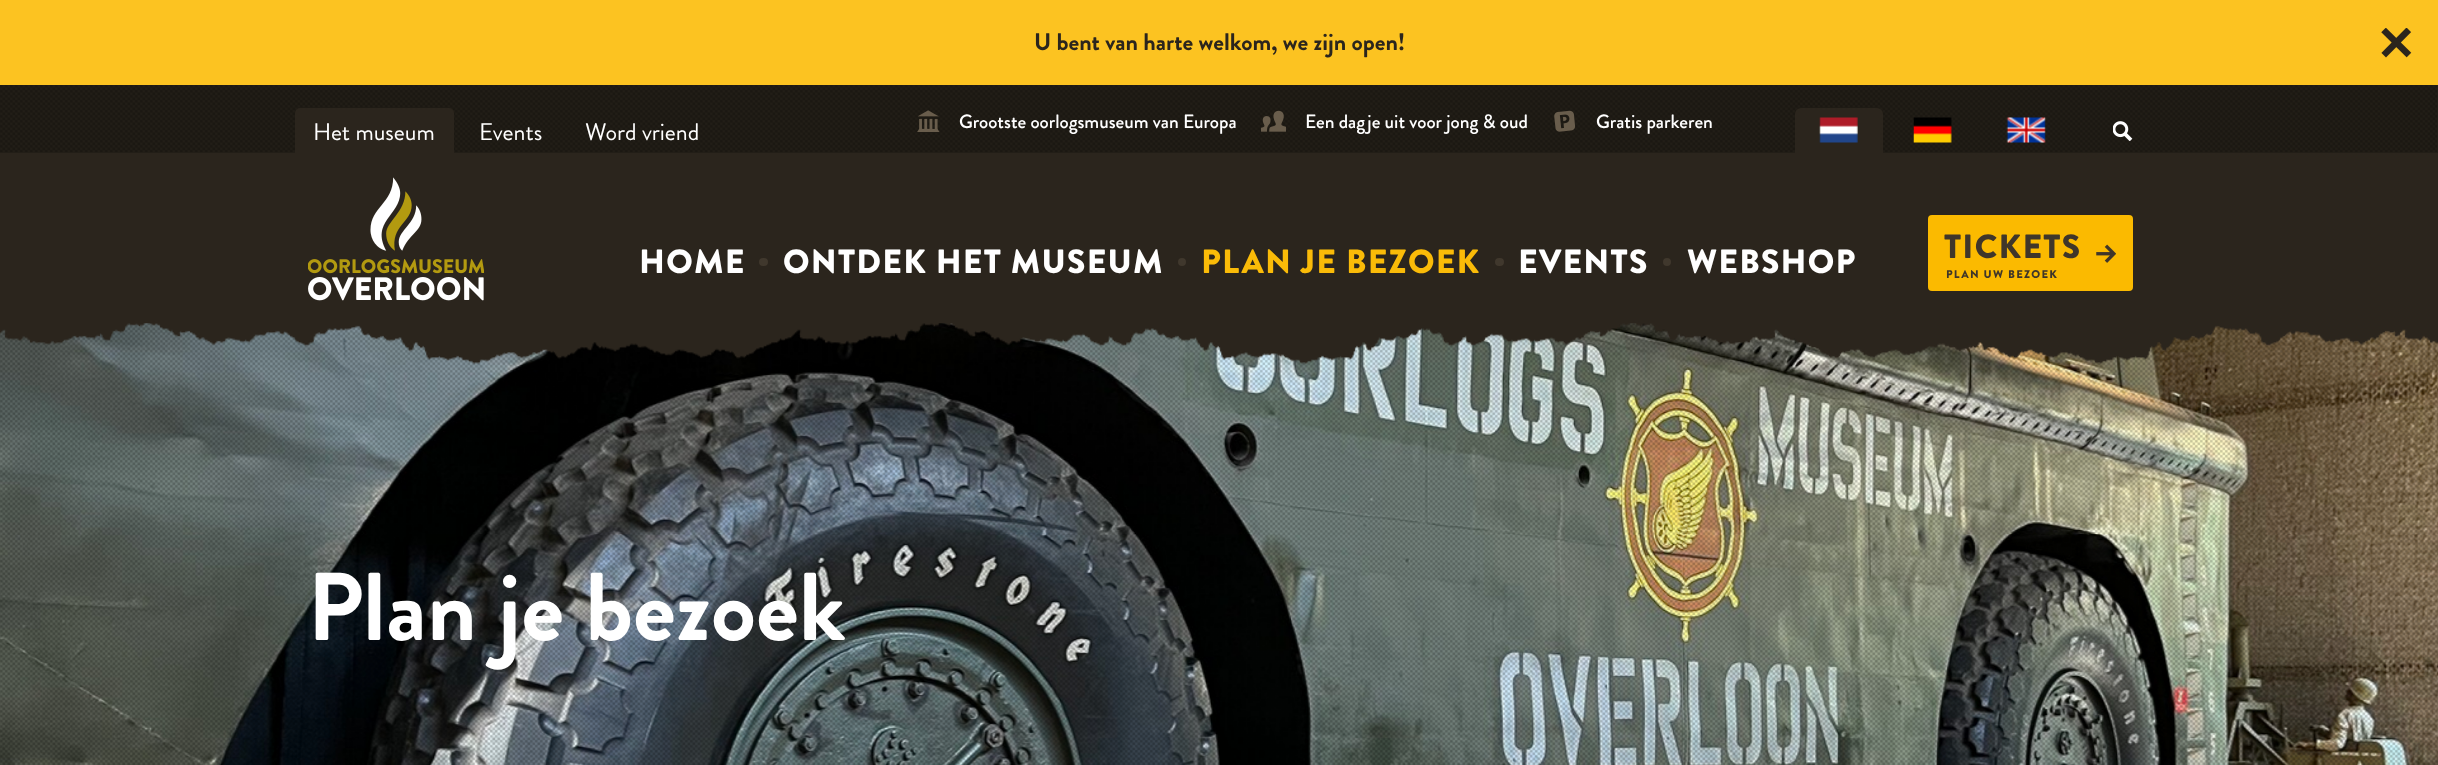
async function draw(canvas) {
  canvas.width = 2438
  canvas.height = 765
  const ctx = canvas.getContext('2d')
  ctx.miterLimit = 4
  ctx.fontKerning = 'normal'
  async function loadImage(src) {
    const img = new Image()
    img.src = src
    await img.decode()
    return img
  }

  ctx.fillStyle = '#fff'
  ctx.fillRect(0, 0, 2438, 765)
  ctx.fillStyle = '#fcc321'
  ctx.fillRect(0, 0, 2438, 85)
  ctx.font = 'bold 24px Brandon Grotesque'
  ctx.fillStyle = '#2b251d'
  ctx.fillText('U bent van harte welkom, we zijn open!', 1034, 50)
  ctx.drawImage(await loadImage('image0.png'), 2381, 28, 31, 30)
  ctx.fillRect(0, 153, 2438, 170)
  ctx.fillStyle = '#221e17'
  ctx.fillRect(0, 85, 2438, 68)
  ctx.drawImage(await loadImage('image1.png'), 0, 85, 2437, 67)
  ctx.fillStyle = '#2b251d'
  ctx.beginPath()
  ctx.roundRect(295, 108, 159, 45, [5, 5, 0, 0])
  ctx.fill()
  ctx.font = '24px Brandon Grotesque'
  ctx.fillStyle = '#fff'
  ctx.fillText('Het museum', 313, 140)
  ctx.fillText('Events', 479, 140)
  ctx.fillText('Word vriend', 585, 140)
  ctx.drawImage(await loadImage('image2.png'), 917, 110, 23, 22)
  ctx.font = '500 19.25px Brandon Grotesque'
  ctx.fillText('Grootste oorlogsmuseum van Europa', 959, 128)
  ctx.drawImage(await loadImage('image3.png'), 1261, 110, 25, 22)
  ctx.fillText('Een dagje uit voor jong & oud', 1305, 128)
  ctx.drawImage(await loadImage('image4.png'), 1554, 110, 22, 22)
  ctx.fillText('Gratis parkeren', 1596, 128)
  ctx.fillStyle = '#2b251d'
  ctx.beginPath()
  ctx.roundRect(1795, 108, 88, 47, [6, 6, 0, 0])
  ctx.fill()
  ctx.drawImage(await loadImage('image5.png'), 1819, 117, 39, 26)
  ctx.drawImage(await loadImage('image6.png'), 1913, 117, 39, 26)
  ctx.drawImage(await loadImage('image7.png'), 2006, 117, 40, 26)
  ctx.drawImage(await loadImage('image8.png'), 2113, 121, 20, 20)
  ctx.drawImage(await loadImage('image9.png'), 308, 177, 176, 124)
  ctx.letterSpacing = '1.25px'
  ctx.font = '900 33.6px Brandon Grotesque'
  ctx.fillStyle = '#fff'
  ctx.fillText('HOME', 639, 273)
  ctx.fillStyle = '#40382d'
  ctx.beginPath()
  ctx.roundRect(759, 258, 9, 8, 4)
  ctx.fill()
  ctx.fillStyle = '#fff'
  ctx.fillText('ONTDEK HET MUSEUM', 783, 273)
  ctx.fillStyle = '#40382d'
  ctx.beginPath()
  ctx.arc(1182, 262, 4, 0, 2 * Math.PI)
  ctx.fill()
  ctx.fillStyle = '#fabb08'
  ctx.fillText('PLAN JE BEZOEK', 1201, 273)
  ctx.fillStyle = '#40382d'
  ctx.beginPath()
  ctx.roundRect(1495, 258, 9, 8, 4)
  ctx.fill()
  ctx.fillStyle = '#fff'
  ctx.fillText('EVENTS', 1518, 273)
  ctx.fillStyle = '#40382d'
  ctx.beginPath()
  ctx.arc(1667, 262, 4, 0, 2 * Math.PI)
  ctx.fill()
  ctx.fillStyle = '#fff'
  ctx.fillText('WEBSHOP', 1687, 273)
  ctx.fillStyle = '#fbba00'
  ctx.beginPath()
  ctx.roundRect(1928, 215, 205, 76, 4)
  ctx.fill()
  ctx.fillStyle = '#3f362a'
  ctx.fillText('TICKETS', 1944, 258)
  ctx.drawImage(await loadImage('image10.png'), 2096, 244, 20, 19)
  ctx.font = '900 11.25px Brandon Grotesque'
  ctx.fillText('PLAN UW BEZOEK', 1946, 278)
  ctx.drawImage(await loadImage('image12.png'), 0, 323, 2438, 442)
  ctx.drawImage(await loadImage('image13.png'), 0, 323, 2438, 442)
  ctx.drawImage(await loadImage('image11.png'), 0, 323, 2438, 46)
  ctx.letterSpacing = '0px'
  ctx.font = 'bold 96px Brandon Grotesque'
  ctx.fillStyle = '#fff'
  ctx.fillText('Plan je bezoek', 307, 640)
}

draw(document.querySelector('canvas'))
